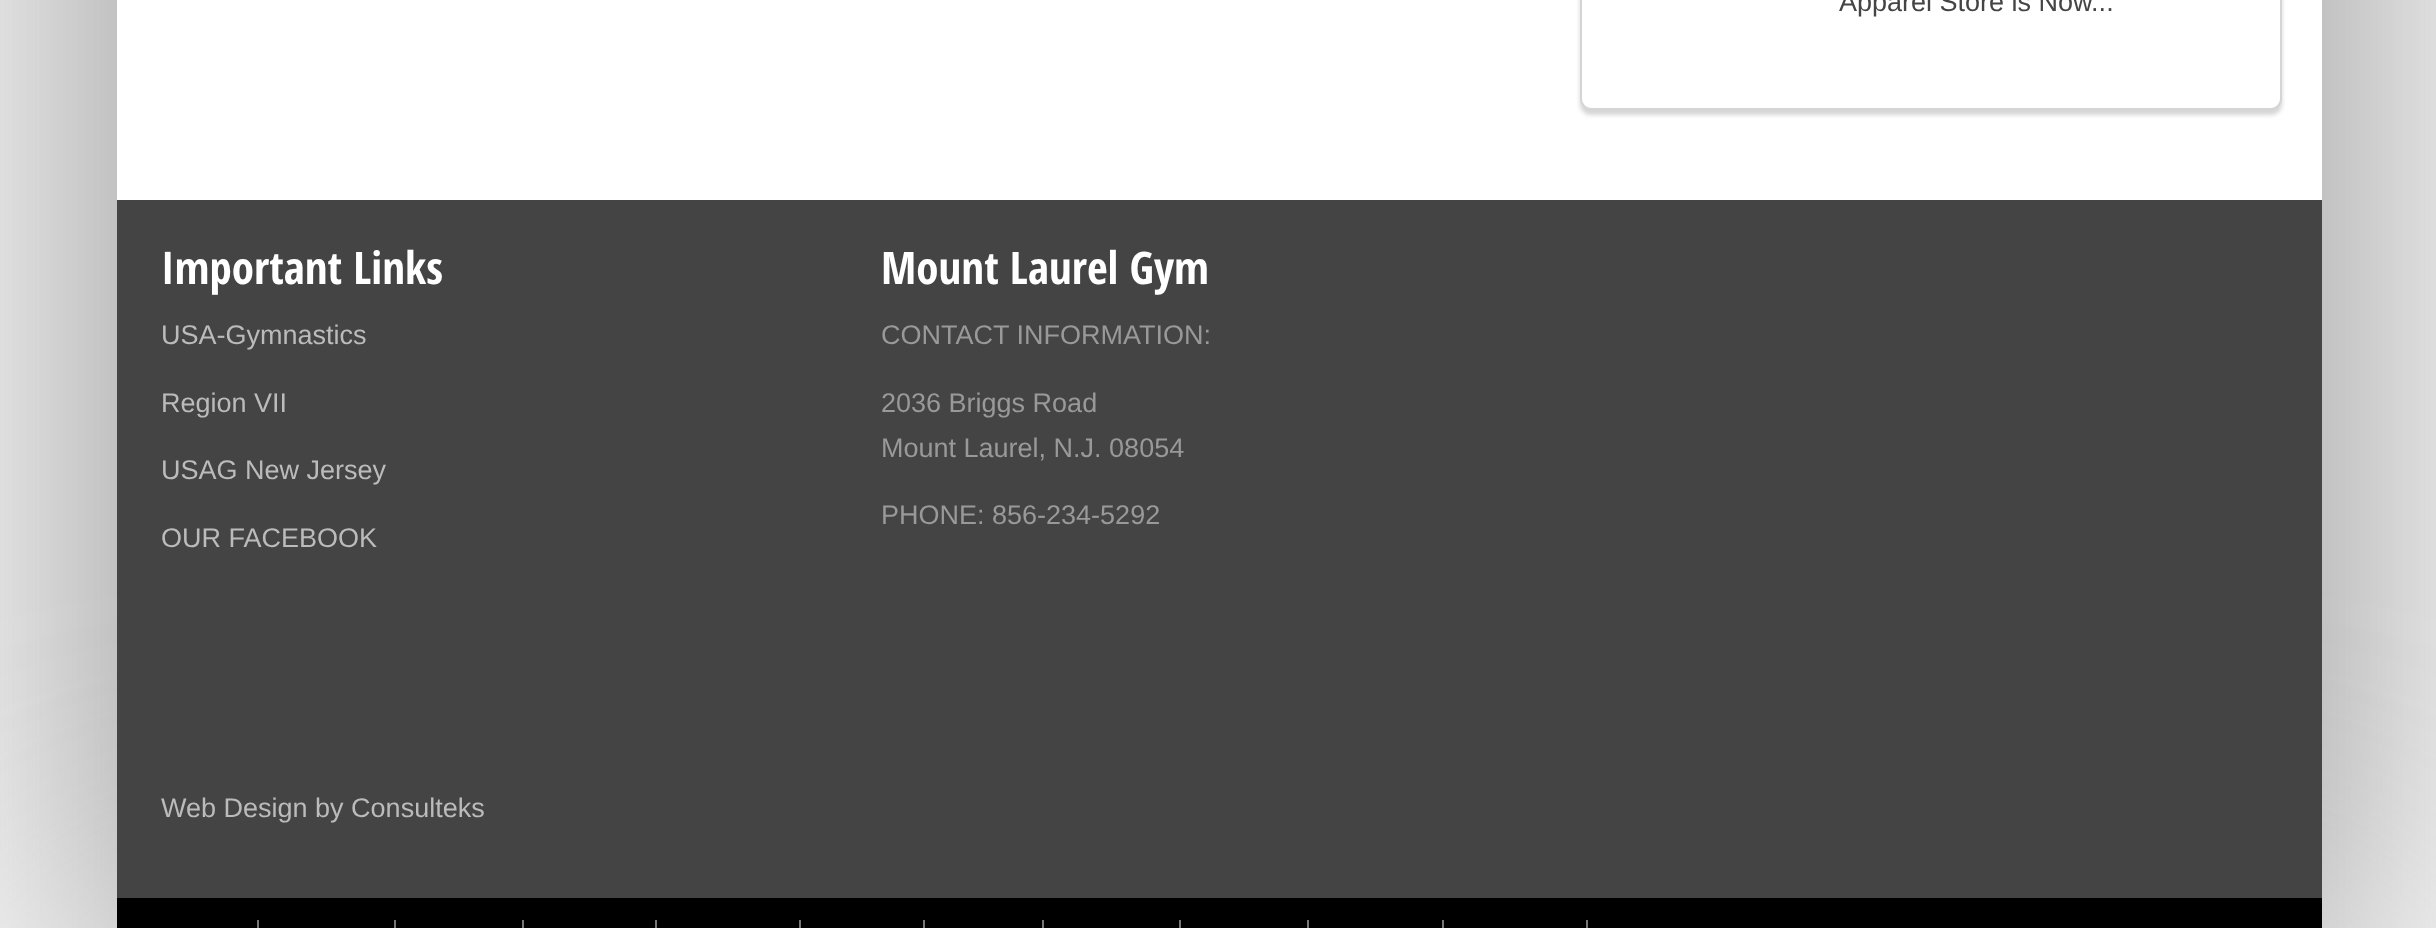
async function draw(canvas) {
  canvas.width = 2436
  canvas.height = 928
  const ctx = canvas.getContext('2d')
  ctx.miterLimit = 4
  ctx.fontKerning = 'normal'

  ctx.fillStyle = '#fff'
  ctx.fillRect(0, 0, 2436, 928)
  ctx.save()
  ctx.beginPath()
  ctx.moveTo(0, 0)
  ctx.lineTo(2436, 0)
  ctx.lineTo(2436, 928)
  ctx.lineTo(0, 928)
  ctx.closePath()
  ctx.moveTo(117, -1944)
  ctx.lineTo(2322, -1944)
  ctx.lineTo(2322, 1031)
  ctx.lineTo(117, 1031)
  ctx.closePath()
  ctx.clip('evenodd')
  ctx.fillStyle = '#888'
  ctx.filter = 'blur(191px)'
  ctx.beginPath()
  ctx.rect(110, -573, 2219, 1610)
  ctx.fill()
  ctx.filter = 'none'
  ctx.restore()
  ctx.fillStyle = '#d5d5d5'
  ctx.filter = 'blur(2px)'
  ctx.beginPath()
  ctx.roundRect(1580, -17, 702, 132, 11)
  ctx.fill()
  ctx.filter = 'none'
  ctx.fillStyle = '#fff'
  ctx.beginPath()
  ctx.moveTo(1581, -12)
  ctx.lineTo(2271, -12)
  ctx.bezierCurveTo(2276.5, -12, 2281, -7.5, 2281, -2)
  ctx.lineTo(2281, 99)
  ctx.bezierCurveTo(2281, 104.5, 2276.5, 109, 2271, 109)
  ctx.lineTo(1591, 109)
  ctx.bezierCurveTo(1585.5, 109, 1581, 104.5, 1581, 99)
  ctx.closePath()
  ctx.fill()
  ctx.strokeStyle = '#d5d5d5'
  ctx.lineWidth = 2
  ctx.stroke()
  ctx.font = '27px Liberation Sans'
  ctx.fillStyle = '#444'
  ctx.fillText('Apparel Store is Now...', 1839, 11)
  ctx.fillRect(117, 200, 2205, 698)
  ctx.font = 'bold 45px Open Sans Condensed'
  ctx.fillStyle = '#fff'
  ctx.fillText('Important Links', 161, 284)
  ctx.font = '27px Liberation Sans'
  ctx.fillStyle = '#bbb'
  ctx.fillText('USA-Gymnastics', 161, 344)
  ctx.fillText('Region VII', 161, 412)
  ctx.fillText('USAG New Jersey', 161, 479)
  ctx.fillText('OUR FACEBOOK', 161, 547)
  ctx.fillText('Web Design by Consulteks', 161, 817)
  ctx.font = 'bold 45px Open Sans Condensed'
  ctx.fillStyle = '#fff'
  ctx.fillText('Mount Laurel Gym', 881, 284)
  ctx.font = '27px Liberation Sans'
  ctx.fillStyle = '#999'
  ctx.fillText('CONTACT INFORMATION:', 881, 344)
  ctx.fillText('2036 Briggs Road', 881, 412)
  ctx.fillText('Mount Laurel, N.J. 08054', 881, 457)
  ctx.fillText('PHONE: 856-234-5292', 881, 524)
  ctx.fillStyle = '#000'
  ctx.fillRect(117, 898, 2205, 30)
  ctx.fillStyle = '#777'
  ctx.fillRect(257, 920, 2, 8)
  ctx.fillRect(394, 920, 2, 8)
  ctx.fillRect(522, 920, 2, 8)
  ctx.fillRect(655, 920, 2, 8)
  ctx.fillRect(799, 920, 2, 8)
  ctx.fillRect(923, 920, 2, 8)
  ctx.fillRect(1042, 920, 2, 8)
  ctx.fillRect(1179, 920, 2, 8)
  ctx.fillRect(1307, 920, 2, 8)
  ctx.fillRect(1442, 920, 2, 8)
  ctx.fillRect(1586, 920, 2, 8)
}

draw(document.querySelector('canvas'))
